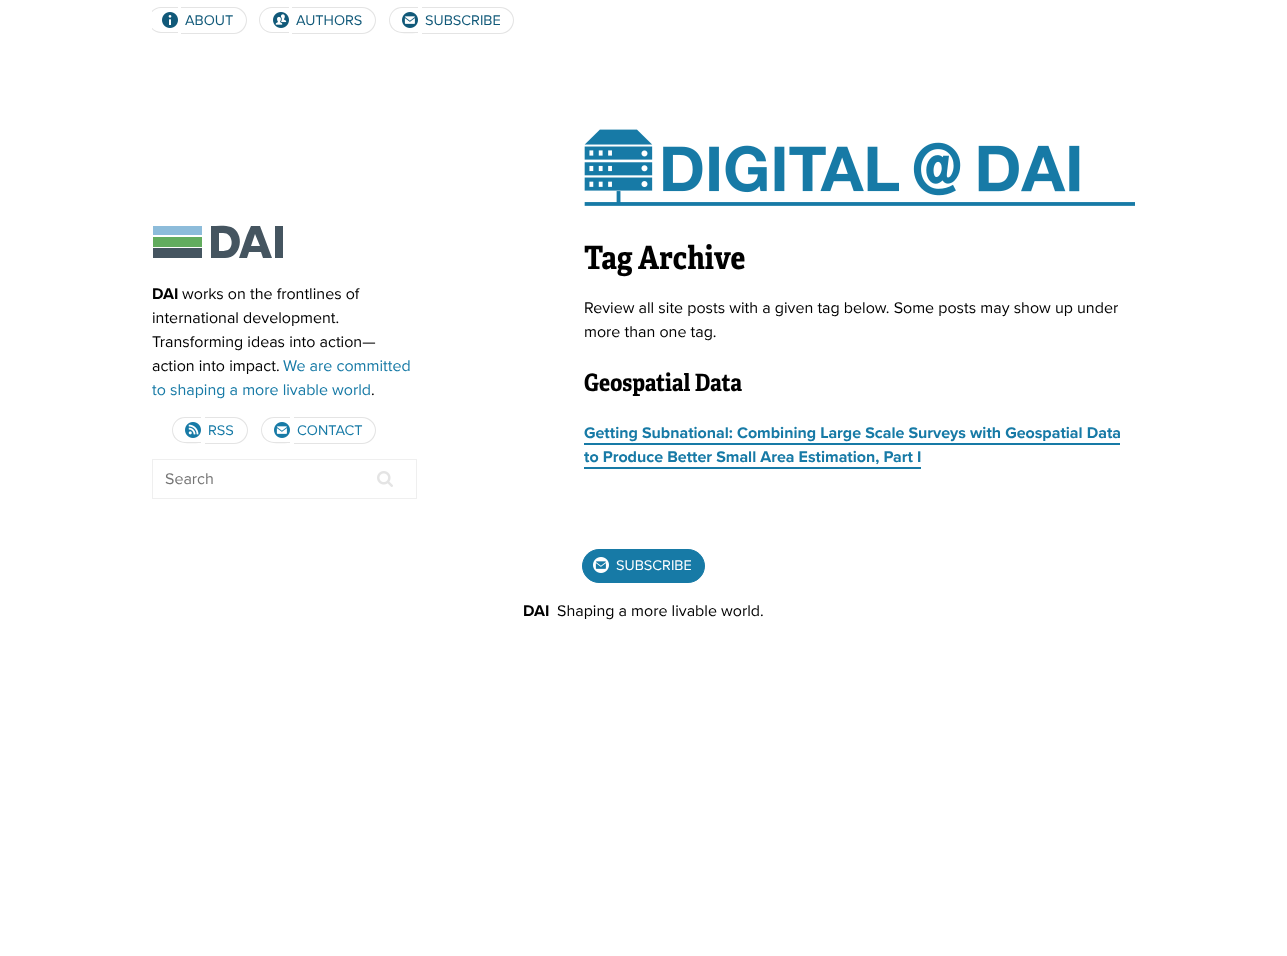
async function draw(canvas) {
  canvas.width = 1287
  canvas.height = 956
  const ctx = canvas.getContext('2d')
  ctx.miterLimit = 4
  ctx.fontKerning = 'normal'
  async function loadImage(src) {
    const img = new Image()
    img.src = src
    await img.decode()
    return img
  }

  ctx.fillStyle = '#fff'
  ctx.fillRect(0, 0, 1287, 956)
  ctx.save()
  ctx.beginPath()
  ctx.rect(152, 0, 984, 49)
  ctx.clip()
  ctx.fillStyle = '#e4e4e4'
  ctx.beginPath()
  ctx.moveTo(161, 7)
  ctx.lineTo(178, 7)
  ctx.lineTo(178, 33)
  ctx.lineTo(161, 33)
  ctx.bezierCurveTo(154, 33, 148, 27, 148, 20)
  ctx.bezierCurveTo(148, 13, 154, 7, 161, 7)
  ctx.closePath()
  ctx.moveTo(161, 8)
  ctx.lineTo(178, 8)
  ctx.lineTo(178, 32)
  ctx.lineTo(161, 32)
  ctx.bezierCurveTo(154.5, 32, 149, 26.5, 149, 20)
  ctx.bezierCurveTo(149, 13.5, 154.5, 8, 161, 8)
  ctx.closePath()
  ctx.fill('evenodd')
  ctx.restore()
  ctx.drawImage(await loadImage('image0.png'), 162, 12, 16, 16)
  ctx.fillStyle = '#e4e4e4'
  ctx.beginPath()
  ctx.moveTo(181, 7)
  ctx.lineTo(234, 7)
  ctx.bezierCurveTo(241, 7, 247, 13, 247, 20)
  ctx.bezierCurveTo(247, 28, 241, 34, 234, 34)
  ctx.lineTo(181, 34)
  ctx.closePath()
  ctx.moveTo(181, 8)
  ctx.lineTo(234, 8)
  ctx.bezierCurveTo(240, 8, 246, 14, 246, 20)
  ctx.bezierCurveTo(246, 27, 240, 33, 234, 33)
  ctx.lineTo(181, 33)
  ctx.closePath()
  ctx.fill('evenodd')
  ctx.font = '14.5px Proxima Nova'
  ctx.fillStyle = '#115979'
  ctx.fillText('ABOUT', 185, 25)
  ctx.fillStyle = '#e4e4e4'
  ctx.beginPath()
  ctx.moveTo(272, 7)
  ctx.lineTo(289, 7)
  ctx.lineTo(289, 33)
  ctx.lineTo(272, 33)
  ctx.bezierCurveTo(265, 33, 259, 27, 259, 20)
  ctx.bezierCurveTo(259, 13, 265, 7, 272, 7)
  ctx.closePath()
  ctx.moveTo(272, 8)
  ctx.lineTo(289, 8)
  ctx.lineTo(289, 32)
  ctx.lineTo(272, 32)
  ctx.bezierCurveTo(265.5, 32, 260, 26.5, 260, 20)
  ctx.bezierCurveTo(260, 13.5, 265.5, 8, 272, 8)
  ctx.closePath()
  ctx.fill('evenodd')
  ctx.drawImage(await loadImage('image1.png'), 273, 12, 16, 16)
  ctx.beginPath()
  ctx.moveTo(292, 7)
  ctx.lineTo(362, 7)
  ctx.bezierCurveTo(370, 7, 376, 13, 376, 20)
  ctx.bezierCurveTo(376, 28, 370, 34, 362, 34)
  ctx.lineTo(292, 34)
  ctx.closePath()
  ctx.moveTo(292, 8)
  ctx.lineTo(362, 8)
  ctx.bezierCurveTo(369, 8, 375, 14, 375, 20)
  ctx.bezierCurveTo(375, 27, 369, 33, 362, 33)
  ctx.lineTo(292, 33)
  ctx.closePath()
  ctx.fill('evenodd')
  ctx.fillStyle = '#115979'
  ctx.fillText('AUTHORS', 296, 25)
  ctx.fillStyle = '#e4e4e4'
  ctx.beginPath()
  ctx.moveTo(402, 7)
  ctx.lineTo(418, 7)
  ctx.lineTo(418, 33)
  ctx.bezierCurveTo(412.5, 33, 401.5, 34, 397, 32)
  ctx.bezierCurveTo(384, 26.5, 388, 7, 402, 7)
  ctx.closePath()
  ctx.moveTo(402, 8)
  ctx.lineTo(418, 8)
  ctx.lineTo(418, 32)
  ctx.lineTo(402, 32)
  ctx.bezierCurveTo(395.5, 32, 390, 26.5, 390, 20)
  ctx.bezierCurveTo(390, 13.5, 395.5, 8, 402, 8)
  ctx.closePath()
  ctx.fill('evenodd')
  ctx.drawImage(await loadImage('image2.png'), 402, 12, 16, 16)
  ctx.beginPath()
  ctx.moveTo(422, 7)
  ctx.lineTo(500, 7)
  ctx.bezierCurveTo(508, 7, 514, 13, 514, 20)
  ctx.bezierCurveTo(514, 28, 508, 34, 500, 34)
  ctx.lineTo(422, 34)
  ctx.closePath()
  ctx.moveTo(422, 8)
  ctx.lineTo(500, 8)
  ctx.bezierCurveTo(507, 8, 513, 14, 513, 20)
  ctx.bezierCurveTo(513, 27, 507, 33, 500, 33)
  ctx.lineTo(422, 33)
  ctx.closePath()
  ctx.fill('evenodd')
  ctx.fillStyle = '#115979'
  ctx.fillText('SUBSCRIBE', 425, 25)
  ctx.fillStyle = '#8dbcda'
  ctx.fillRect(153, 226, 49, 9)
  ctx.fillStyle = '#455560'
  ctx.beginPath()
  ctx.moveTo(219, 233)
  ctx.lineTo(219, 251)
  ctx.bezierCurveTo(222, 251, 225, 251, 228, 250)
  ctx.bezierCurveTo(234, 247, 233, 233, 223, 233)
  ctx.closePath()
  ctx.moveTo(211, 258)
  ctx.lineTo(211, 226)
  ctx.bezierCurveTo(217, 226, 225, 225, 231, 227)
  ctx.bezierCurveTo(245, 233, 242, 258, 225, 258)
  ctx.closePath()
  ctx.moveTo(251, 246)
  ctx.lineTo(260, 246)
  ctx.lineTo(255, 234)
  ctx.closePath()
  ctx.moveTo(247, 235)
  ctx.lineTo(251, 226)
  ctx.lineTo(260, 226)
  ctx.lineTo(272, 258)
  ctx.lineTo(263, 258)
  ctx.lineTo(261, 252)
  ctx.lineTo(249, 252)
  ctx.lineTo(247, 258)
  ctx.lineTo(239, 258)
  ctx.closePath()
  ctx.moveTo(275, 258)
  ctx.lineTo(275, 226)
  ctx.lineTo(283, 226)
  ctx.lineTo(283, 258)
  ctx.closePath()
  ctx.fill('evenodd')
  ctx.fillStyle = '#62ac5e'
  ctx.fillRect(153, 237, 49, 10)
  ctx.fillStyle = '#455560'
  ctx.fillRect(153, 248, 49, 10)
  ctx.font = 'bold 16px Proxima Nova'
  ctx.fillStyle = '#000'
  ctx.fillText('DAI', 152, 299)
  ctx.font = '16px Proxima Nova'
  ctx.fillText('works on the frontlines of', 182, 299)
  ctx.fillText('international development.', 152, 323)
  ctx.fillText('Transforming ideas into action—', 152, 347)
  ctx.fillText('action into impact.', 152, 371)
  ctx.fillStyle = '#177aa6'
  ctx.fillText('We are committed', 283, 371)
  ctx.fillText('to shaping a more livable world', 152, 395)
  ctx.fillStyle = '#000'
  ctx.fillText('.', 371, 395)
  ctx.fillStyle = '#e4e4e4'
  ctx.beginPath()
  ctx.moveTo(185, 417)
  ctx.lineTo(201, 417)
  ctx.lineTo(201, 443)
  ctx.bezierCurveTo(195.5, 443, 184.5, 444, 180, 442)
  ctx.bezierCurveTo(167, 436.5, 171, 417, 185, 417)
  ctx.closePath()
  ctx.moveTo(185, 418)
  ctx.lineTo(201, 418)
  ctx.lineTo(201, 442)
  ctx.lineTo(185, 442)
  ctx.bezierCurveTo(178.5, 442, 173, 436.5, 173, 430)
  ctx.bezierCurveTo(173, 423.5, 178.5, 418, 185, 418)
  ctx.closePath()
  ctx.fill('evenodd')
  ctx.drawImage(await loadImage('image3.png'), 185, 422, 16, 16)
  ctx.beginPath()
  ctx.moveTo(205, 417)
  ctx.lineTo(234, 417)
  ctx.bezierCurveTo(242, 417, 248, 423, 248, 430)
  ctx.bezierCurveTo(248, 438, 242, 444, 234, 444)
  ctx.lineTo(205, 444)
  ctx.closePath()
  ctx.moveTo(205, 418)
  ctx.lineTo(234, 418)
  ctx.bezierCurveTo(241, 418, 247, 424, 247, 430)
  ctx.bezierCurveTo(247, 437, 241, 443, 234, 443)
  ctx.lineTo(205, 443)
  ctx.closePath()
  ctx.fill('evenodd')
  ctx.font = '14.5px Proxima Nova'
  ctx.fillStyle = '#177aa6'
  ctx.fillText('RSS', 208, 435)
  ctx.fillStyle = '#e4e4e4'
  ctx.beginPath()
  ctx.moveTo(274, 417)
  ctx.lineTo(290, 417)
  ctx.lineTo(290, 443)
  ctx.bezierCurveTo(284.5, 443, 273.5, 444, 269, 442)
  ctx.bezierCurveTo(256, 436.5, 260, 417, 274, 417)
  ctx.closePath()
  ctx.moveTo(274, 418)
  ctx.lineTo(290, 418)
  ctx.lineTo(290, 442)
  ctx.lineTo(274, 442)
  ctx.bezierCurveTo(267.5, 442, 262, 436.5, 262, 430)
  ctx.bezierCurveTo(262, 423.5, 267.5, 418, 274, 418)
  ctx.closePath()
  ctx.fill('evenodd')
  ctx.drawImage(await loadImage('image4.png'), 274, 422, 16, 16)
  ctx.beginPath()
  ctx.moveTo(294, 417)
  ctx.lineTo(362, 417)
  ctx.bezierCurveTo(370, 417, 376, 423, 376, 430)
  ctx.bezierCurveTo(376, 438, 370, 444, 362, 444)
  ctx.lineTo(294, 444)
  ctx.closePath()
  ctx.moveTo(294, 418)
  ctx.lineTo(362, 418)
  ctx.bezierCurveTo(369, 418, 375, 424, 375, 430)
  ctx.bezierCurveTo(375, 437, 369, 443, 362, 443)
  ctx.lineTo(294, 443)
  ctx.closePath()
  ctx.fill('evenodd')
  ctx.fillStyle = '#177aa6'
  ctx.fillText('CONTACT', 297, 435)
  ctx.strokeStyle = '#efefef'
  ctx.strokeRect(152.5, 459.5, 264, 39)
  ctx.font = '16px Proxima Nova'
  ctx.fillStyle = '#757575'
  ctx.fillText('Search', 165, 484)
  ctx.drawImage(await loadImage('image5.png'), 377, 471, 16, 16)
  ctx.drawImage(await loadImage('image6.png'), 584, 129, 551, 77)
  ctx.font = 'bold 32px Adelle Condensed'
  ctx.fillStyle = '#000'
  ctx.fillText('Tag Archive', 584, 269)
  ctx.font = '16px Proxima Nova'
  ctx.fillText('Review all site posts with a given tag below. Some posts may show up under', 584, 313)
  ctx.fillText('more than one tag.', 584, 337)
  ctx.font = 'bold 24px Adelle Condensed'
  ctx.fillText('Geospatial Data', 584, 391)
  ctx.font = 'bold 16px Proxima Nova'
  ctx.fillStyle = '#177aa6'
  ctx.fillText('Getting Subnational: Combining Large Scale Surveys with Geospatial Data', 584, 438)
  ctx.fillRect(584, 443, 536, 2)
  ctx.fillText('to Produce Better Small Area Estimation, Part I', 584, 462)
  ctx.fillRect(584, 467, 337, 2)
  ctx.beginPath()
  ctx.roundRect(582.5, 549.5, 122, 33, 16.5)
  ctx.fill()
  ctx.strokeStyle = '#177aa6'
  ctx.stroke()
  ctx.drawImage(await loadImage('image7.png'), 593, 557, 16, 16)
  ctx.font = '14.5px Proxima Nova'
  ctx.fillStyle = '#fff'
  ctx.fillText('SUBSCRIBE', 616, 570)
  ctx.font = 'bold 16px Proxima Nova'
  ctx.fillStyle = '#000'
  ctx.fillText('DAI', 523, 616)
  ctx.font = '16px Proxima Nova'
  ctx.fillText('Shaping a more livable world.', 557, 616)
}

draw(document.querySelector('canvas'))
